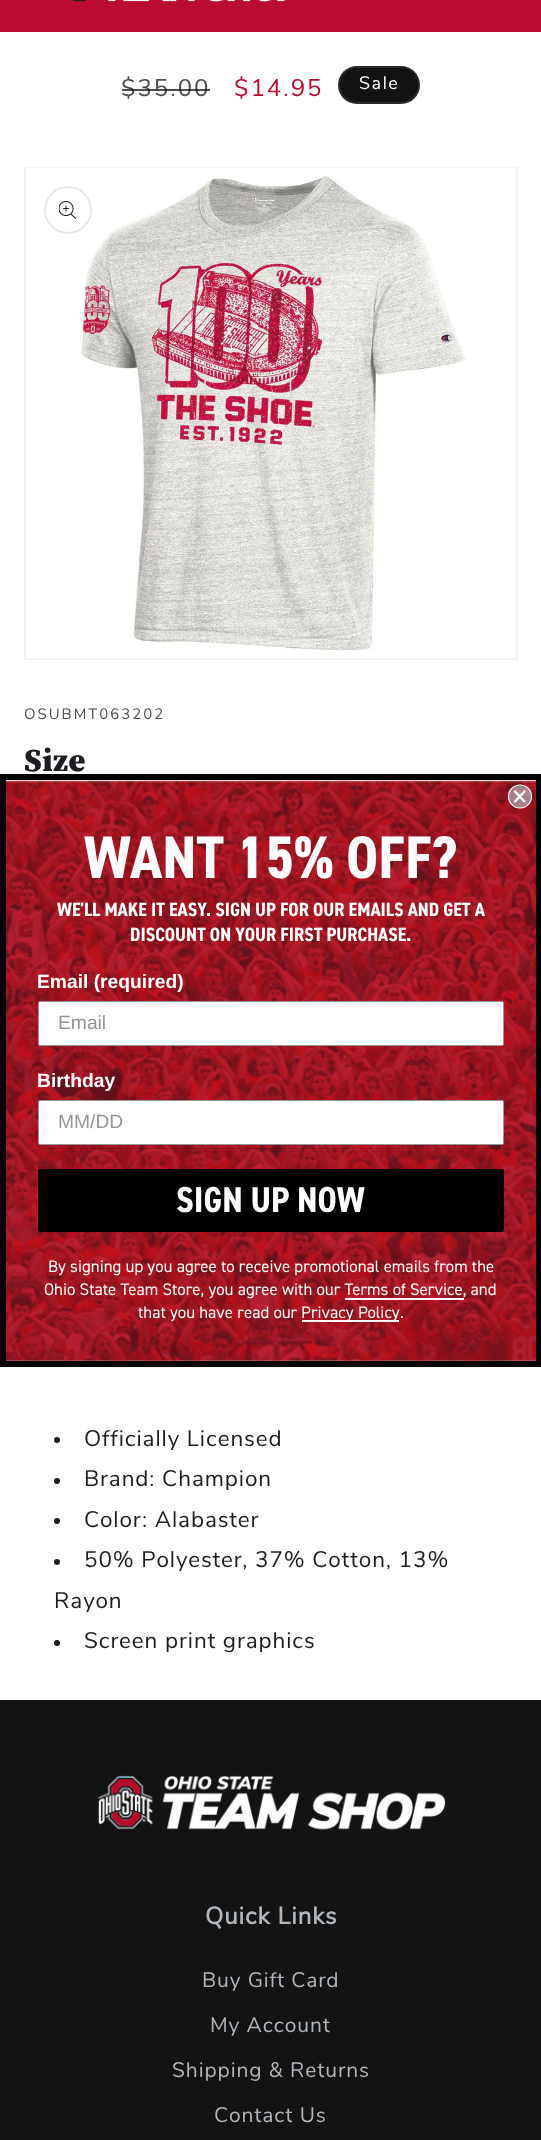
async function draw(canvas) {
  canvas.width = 541
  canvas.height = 2140
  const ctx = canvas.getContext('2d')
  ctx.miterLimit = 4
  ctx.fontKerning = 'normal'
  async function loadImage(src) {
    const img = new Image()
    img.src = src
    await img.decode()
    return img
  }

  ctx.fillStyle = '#fff'
  ctx.fillRect(0, 0, 541, 2140)
  ctx.fillStyle = '#ba0c2f'
  ctx.fillRect(0, 0, 541, 32)
  ctx.drawImage(await loadImage('image0.png'), 72, 0, 213, 2)
  ctx.letterSpacing = '2px'
  ctx.font = '24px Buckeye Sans'
  ctx.fillStyle = '#4d4d4d'
  ctx.fillText('$35.00', 121, 96)
  ctx.fillStyle = '#121212bf'
  ctx.fillRect(122, 89, 88, 2)
  ctx.fillStyle = '#ba0c2f'
  ctx.fillText('$14.95', 234, 96)
  ctx.fillStyle = '#121212'
  ctx.beginPath()
  ctx.roundRect(338, 66, 82, 38, 19)
  ctx.fill()
  ctx.beginPath()
  ctx.roundRect(339, 67, 80, 36, 18)
  ctx.strokeStyle = '#ffffff1a'
  ctx.lineWidth = 2
  ctx.stroke()
  ctx.letterSpacing = '1.5px'
  ctx.font = '18px Buckeye Sans'
  ctx.fillStyle = '#fff'
  ctx.fillText('Sale', 359, 89)
  ctx.strokeStyle = '#f3f3f3'
  ctx.strokeRect(25, 168, 492, 491)
  ctx.drawImage(await loadImage('image1.png'), 26, 168, 490, 486)
  ctx.beginPath()
  ctx.arc(68, 210, 23, 0, 2 * Math.PI)
  ctx.strokeStyle = '#e7e7e7'
  ctx.stroke()
  ctx.drawImage(await loadImage('image2.png'), 59, 201, 17, 18)
  ctx.letterSpacing = '2px'
  ctx.font = '15px Buckeye Sans'
  ctx.fillStyle = '#4d4d4d'
  ctx.fillText('OSUBMT063202', 24, 719)
  ctx.letterSpacing = '0.5px'
  ctx.font = '900 32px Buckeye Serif'
  ctx.fillStyle = '#1e1d23'
  ctx.fillText('Size', 24, 771)
  ctx.beginPath()
  ctx.arc(57, 1440, 3, 0, 2 * Math.PI)
  ctx.fill()
  ctx.letterSpacing = '0.9px'
  ctx.font = '22.5px Buckeye Sans'
  ctx.fillText('Officially Licensed', 84, 1446)
  ctx.beginPath()
  ctx.arc(57, 1481, 3, 0, 2 * Math.PI)
  ctx.fill()
  ctx.fillText('Brand: Champion', 84, 1486)
  ctx.beginPath()
  ctx.arc(57, 1521, 3, 0, 2 * Math.PI)
  ctx.fill()
  ctx.fillText('Color: Alabaster', 84, 1527)
  ctx.beginPath()
  ctx.arc(57, 1562, 3, 0, 2 * Math.PI)
  ctx.fill()
  ctx.fillText('50% Polyester, 37% Cotton, 13%', 84, 1567)
  ctx.fillText('Rayon', 54, 1608)
  ctx.beginPath()
  ctx.arc(57, 1643, 3, 0, 2 * Math.PI)
  ctx.fill()
  ctx.fillText('Screen print graphics', 84, 1648)
  ctx.drawImage(await loadImage('image3.png'), 6, 780, 530, 581)
  ctx.strokeStyle = '#000'
  ctx.lineWidth = 6
  ctx.strokeRect(3, 777, 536, 587)
  ctx.fillStyle = '#b4bbc3a6'
  ctx.beginPath()
  ctx.arc(520, 796.5, 11.5, 0, 2 * Math.PI)
  ctx.fill()
  ctx.strokeStyle = '#fff'
  ctx.lineWidth = 1.2
  ctx.stroke()
  ctx.beginPath()
  ctx.moveTo(515, 791.5)
  ctx.lineTo(524.5, 801.5)
  ctx.moveTo(515, 801.5)
  ctx.lineTo(524.5, 791.5)
  ctx.closePath()
  ctx.lineWidth = 2.4
  ctx.lineCap = 'round'
  ctx.lineJoin = 'round'
  ctx.stroke()
  ctx.letterSpacing = '0px'
  ctx.font = 'bold 60.25px "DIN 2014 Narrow"'
  ctx.fillStyle = '#fff'
  ctx.fillText('WANT 15% OFF?', 84, 878)
  ctx.font = 'bold 19.25px "DIN 2014 Narrow"'
  ctx.fillText('WE\'LL MAKE IT EASY. SIGN UP FOR OUR EMAILS AND GET A', 57, 916)
  ctx.fillText('DISCOUNT ON YOUR FIRST PURCHASE.', 130, 941)
  ctx.font = 'bold 19.25px Liberation Sans'
  ctx.fillText('Email (required)', 37, 988)
  ctx.beginPath()
  ctx.roundRect(38.5, 1001.5, 465, 44, 1.5)
  ctx.fill()
  ctx.strokeStyle = '#949596'
  ctx.lineWidth = 1
  ctx.lineJoin = 'miter'
  ctx.stroke()
  ctx.font = '19.25px Liberation Sans'
  ctx.fillStyle = '#949596'
  ctx.fillText('Email', 58, 1029)
  ctx.font = 'bold 19.25px Liberation Sans'
  ctx.fillStyle = '#fff'
  ctx.fillText('Birthday', 37, 1087)
  ctx.beginPath()
  ctx.roundRect(38.5, 1100.5, 465, 44, 1.5)
  ctx.fill()
  ctx.stroke()
  ctx.font = '19.25px Liberation Sans'
  ctx.fillStyle = '#949596'
  ctx.fillText('MM/DD', 58, 1128)
  ctx.fillStyle = '#000'
  ctx.beginPath()
  ctx.roundRect(38, 1169, 466, 63, 2)
  ctx.fill()
  ctx.font = 'bold 36px "DIN 2014 Narrow"'
  ctx.fillStyle = '#fff'
  ctx.fillText('SIGN UP NOW', 176, 1212)
  ctx.font = '16.85px "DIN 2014"'
  ctx.fillStyle = '#faf8f8'
  ctx.fillText('By signing up you agree to receive promotional emails from the', 48, 1272)
  ctx.fillText('Ohio State Team Store, you agree with our Terms of Service, and', 44, 1295)
  ctx.fillRect(345, 1298, 119, 2)
  ctx.fillText('that you have read our', 138, 1318)
  ctx.fillRect(302, 1320, 97, 2)
  ctx.fillText('Privacy Policy', 301, 1318)
  ctx.fillText('.', 400, 1318)
  ctx.fillStyle = '#131313'
  ctx.fillRect(0, 1700, 541, 440)
  ctx.drawImage(await loadImage('image4.png'), 98, 1775, 348, 55)
  ctx.letterSpacing = '0.9px'
  ctx.font = 'bold 24px Buckeye Sans'
  ctx.fillStyle = '#b0b7bc'
  ctx.fillText('Quick Links', 205, 1924)
  ctx.font = '21px Buckeye Sans'
  ctx.fillText('Buy Gift Card', 202, 1987)
  ctx.fillText('My Account', 210, 2032)
  ctx.fillText('Shipping & Returns', 172, 2077)
  ctx.fillText('Contact Us', 214, 2122)
}

draw(document.querySelector('canvas'))
